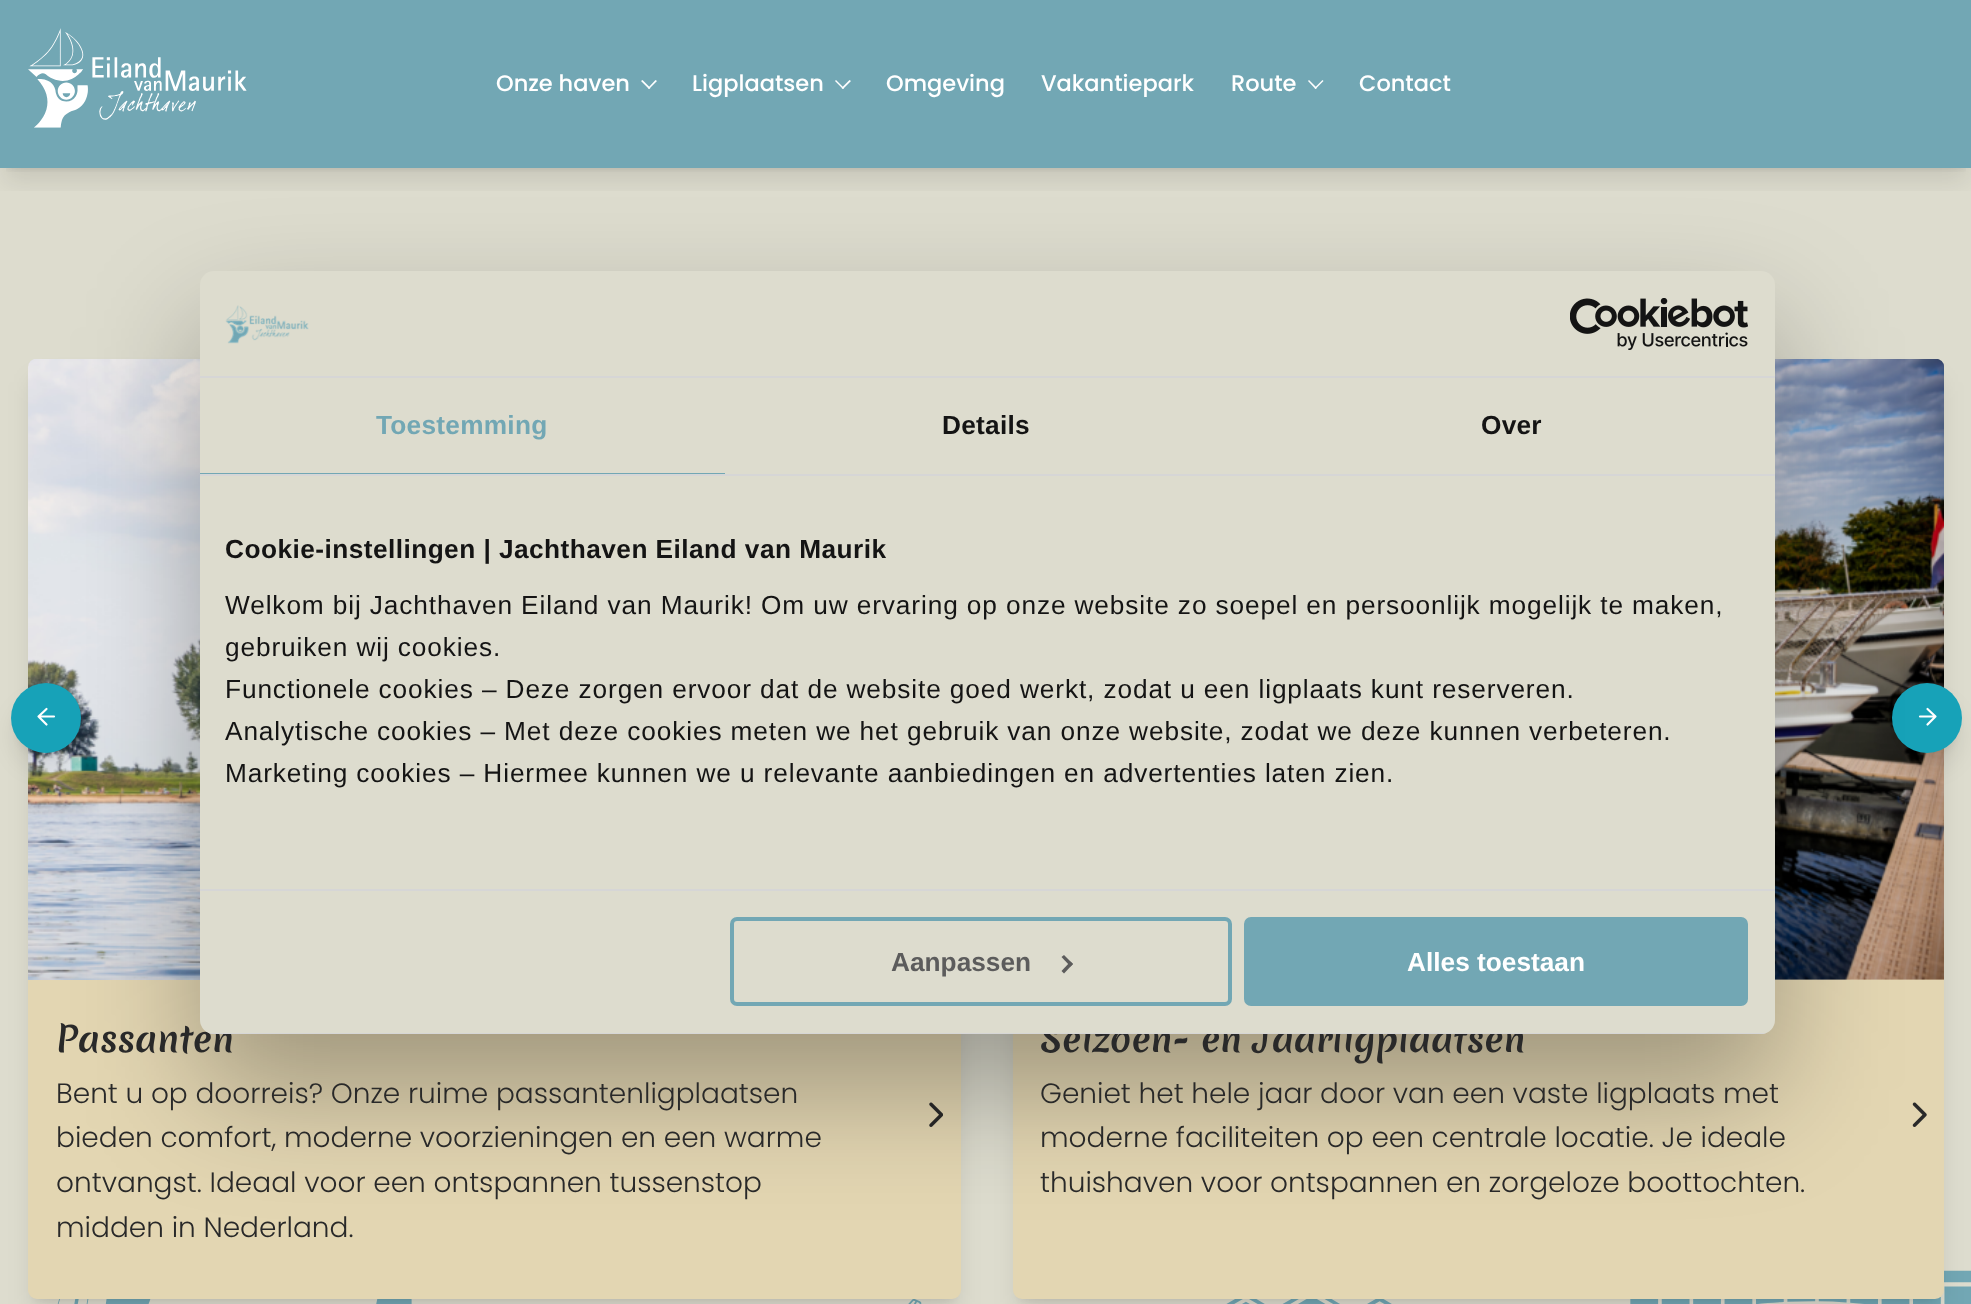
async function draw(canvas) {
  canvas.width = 1971
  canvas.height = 1304
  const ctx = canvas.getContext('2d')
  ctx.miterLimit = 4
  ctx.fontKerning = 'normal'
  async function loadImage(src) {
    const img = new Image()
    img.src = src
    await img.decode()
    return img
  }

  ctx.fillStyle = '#dddcce'
  ctx.fillRect(0, 0, 1971, 1304)
  ctx.fillStyle = '#72a7b4'
  ctx.fillRect(0, 0, 1971, 168)
  ctx.save()
  ctx.beginPath()
  ctx.rect(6, 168, 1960, 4)
  ctx.clip()
  ctx.fillStyle = '#0000001a'
  ctx.filter = 'blur(5px)'
  ctx.beginPath()
  ctx.rect(7, 14, 1958, 154)
  ctx.fill()
  ctx.filter = 'none'
  ctx.restore()
  ctx.save()
  ctx.beginPath()
  ctx.rect(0, 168, 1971, 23)
  ctx.clip()
  ctx.fillStyle = '#0000001a'
  ctx.filter = 'blur(13px)'
  ctx.beginPath()
  ctx.rect(5, 23, 1962, 157)
  ctx.fill()
  ctx.filter = 'none'
  ctx.restore()
  ctx.drawImage(await loadImage('image0.png'), 28, 28, 219, 100)
  ctx.font = '500 22.5px Poppins'
  ctx.fillStyle = '#fff'
  ctx.fillText('Onze haven', 496, 91)
  ctx.beginPath()
  ctx.moveTo(648, 88)
  ctx.lineTo(655.5, 80)
  ctx.lineTo(657, 81)
  ctx.lineTo(649, 89)
  ctx.closePath()
  ctx.fill()
  ctx.beginPath()
  ctx.moveTo(641, 81)
  ctx.lineTo(642.5, 80)
  ctx.lineTo(650.5, 88)
  ctx.lineTo(649, 89)
  ctx.closePath()
  ctx.fill()
  ctx.fillText('Ligplaatsen', 692, 91)
  ctx.beginPath()
  ctx.moveTo(841.5, 88)
  ctx.lineTo(849.5, 80)
  ctx.lineTo(851, 81)
  ctx.lineTo(843, 89)
  ctx.closePath()
  ctx.fill()
  ctx.beginPath()
  ctx.moveTo(835, 81)
  ctx.lineTo(836, 80)
  ctx.lineTo(844, 88)
  ctx.lineTo(843, 89)
  ctx.closePath()
  ctx.fill()
  ctx.fillText('Omgeving', 886, 91)
  ctx.fillText('Vakantiepark', 1041, 91)
  ctx.fillText('Route', 1231, 91)
  ctx.beginPath()
  ctx.moveTo(1314.5, 88)
  ctx.lineTo(1322.5, 80)
  ctx.lineTo(1323.5, 81)
  ctx.lineTo(1315.5, 89)
  ctx.closePath()
  ctx.fill()
  ctx.beginPath()
  ctx.moveTo(1308, 81)
  ctx.lineTo(1309, 80)
  ctx.lineTo(1317, 88)
  ctx.lineTo(1315.5, 89)
  ctx.closePath()
  ctx.fill()
  ctx.fillText('Contact', 1359, 91)
  ctx.drawImage(await loadImage('image7.png'), 57, 1270, 1914, 34)
  ctx.fillStyle = '#0000001a'
  ctx.filter = 'blur(5px)'
  ctx.beginPath()
  ctx.roundRect(35, 373, 919, 926, 2)
  ctx.fill()
  ctx.filter = 'none'
  ctx.filter = 'blur(13px)'
  ctx.beginPath()
  ctx.roundRect(33, 382, 923, 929, 4)
  ctx.fill()
  ctx.filter = 'none'
  ctx.fillStyle = '#e3d6b2'
  ctx.beginPath()
  ctx.roundRect(28, 359, 933, 940, 9)
  ctx.fill()
  ctx.drawImage(await loadImage('image3.png'), 28, 359, 172, 621)
  ctx.fillStyle = '#0000001a'
  ctx.filter = 'blur(5px)'
  ctx.beginPath()
  ctx.roundRect(18, 697, 56, 56, 28)
  ctx.fill()
  ctx.filter = 'none'
  ctx.filter = 'blur(13px)'
  ctx.beginPath()
  ctx.roundRect(16, 705, 59, 60, 29.5)
  ctx.fill()
  ctx.filter = 'none'
  ctx.fillStyle = '#17a2b8'
  ctx.beginPath()
  ctx.arc(46, 718, 35, 0, 2 * Math.PI)
  ctx.fill()
  ctx.beginPath()
  ctx.moveTo(46.5, 724.5)
  ctx.lineTo(38.5, 716.5)
  ctx.lineTo(46.5, 709)
  ctx.moveTo(54, 716.5)
  ctx.lineTo(38.5, 716.5)
  ctx.strokeStyle = '#fff'
  ctx.lineWidth = 2.2
  ctx.lineCap = 'round'
  ctx.lineJoin = 'round'
  ctx.stroke()
  ctx.fillStyle = '#0000001a'
  ctx.filter = 'blur(5px)'
  ctx.beginPath()
  ctx.roundRect(1020, 373, 917, 926, 2)
  ctx.fill()
  ctx.filter = 'none'
  ctx.filter = 'blur(13px)'
  ctx.beginPath()
  ctx.roundRect(1019, 382, 920, 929, 4)
  ctx.fill()
  ctx.filter = 'none'
  ctx.fillStyle = '#e3d6b2'
  ctx.beginPath()
  ctx.roundRect(1013, 359, 931, 940, 9)
  ctx.fill()
  ctx.drawImage(await loadImage('image5.png'), 1775, 359, 169, 621)
  ctx.fillStyle = '#0000001a'
  ctx.filter = 'blur(5px)'
  ctx.beginPath()
  ctx.roundRect(1899, 697, 56, 56, 28)
  ctx.fill()
  ctx.filter = 'none'
  ctx.filter = 'blur(13px)'
  ctx.beginPath()
  ctx.roundRect(1897, 705, 60, 60, 30)
  ctx.fill()
  ctx.filter = 'none'
  ctx.fillStyle = '#17a2b8'
  ctx.beginPath()
  ctx.arc(1927, 718, 35, 0, 2 * Math.PI)
  ctx.fill()
  ctx.beginPath()
  ctx.moveTo(1920, 716.5)
  ctx.lineTo(1935.5, 716.5)
  ctx.moveTo(1927.5, 709)
  ctx.lineTo(1935.5, 716.5)
  ctx.lineTo(1927.5, 724.5)
  ctx.stroke()
  ctx.drawImage(await loadImage('image4.png'), 929, 1102, 14, 25)
  ctx.drawImage(await loadImage('image6.png'), 1912, 1102, 15, 25)
  ctx.fillStyle = '#0000004d'
  ctx.filter = 'blur(59.5px)'
  ctx.beginPath()
  ctx.roundRect(200, 327, 1575, 763, 14)
  ctx.fill()
  ctx.filter = 'none'
  ctx.font = 'bold 35px Merienda'
  ctx.fillStyle = '#292929'
  ctx.fillText('Passanten', 56, 1052)
  ctx.fillText('Seizoen- en Jaarligplaatsen', 1040, 1052)
  ctx.fillStyle = '#dddcce'
  ctx.beginPath()
  ctx.roundRect(200, 271, 1575, 763, 14)
  ctx.fill()
  ctx.fillStyle = '#d6d6d6'
  ctx.fillRect(200, 376, 1575, 2)
  ctx.drawImage(await loadImage('image1.png'), 225, 305, 84, 39)
  ctx.drawImage(await loadImage('image2.png'), 1570, 298, 178, 52)
  ctx.fillRect(200, 474, 1575, 2)
  ctx.fillStyle = '#72a7b4'
  ctx.fillRect(200, 473, 525, 1)
  ctx.letterSpacing = '0.25px'
  ctx.font = 'bold 26.25px Liberation Sans'
  ctx.fillText('Toestemming', 376, 434)
  ctx.fillStyle = '#141414'
  ctx.fillText('Details', 942, 434)
  ctx.fillText('Over', 1481, 434)
  ctx.fillStyle = '#d6d6d6'
  ctx.fillRect(200, 889, 1575, 2)
  ctx.letterSpacing = '0.45px'
  ctx.fillStyle = '#141414'
  ctx.fillText('Cookie-instellingen | Jachthaven Eiland van Maurik', 225, 558)
  ctx.letterSpacing = '0.88px'
  ctx.font = '26.25px Liberation Sans'
  ctx.fillText('Welkom bij Jachthaven Eiland van Maurik! Om uw ervaring op onze website zo soepel en persoonlijk mogelijk te maken,', 225, 614)
  ctx.fillText('gebruiken wij cookies.', 225, 656)
  ctx.fillText('Functionele cookies – Deze zorgen ervoor dat de website goed werkt, zodat u een ligplaats kunt reserveren.', 225, 698)
  ctx.fillText('Analytische cookies – Met deze cookies meten we het gebruik van onze website, zodat we deze kunnen verbeteren.', 225, 740)
  ctx.fillText('Marketing cookies – Hiermee kunnen we u relevante aanbiedingen en advertenties laten zien.', 225, 782)
  ctx.save()
  ctx.beginPath()
  ctx.roundRect(200, 271, 1575, 763, 14)
  ctx.clip()
  ctx.fillStyle = '#d6d6d6'
  ctx.fillRect(209, 1033, 1557, 1)
  ctx.restore()
  ctx.beginPath()
  ctx.roundRect(732, 919, 498, 85, 5)
  ctx.strokeStyle = '#72a7b4'
  ctx.lineWidth = 4
  ctx.lineJoin = 'miter'
  ctx.stroke()
  ctx.letterSpacing = '0px'
  ctx.font = 'bold 26.25px Liberation Sans'
  ctx.fillStyle = '#5c5c5c'
  ctx.fillText('Aanpassen', 891, 971)
  ctx.beginPath()
  ctx.moveTo(1064, 955)
  ctx.lineTo(1073, 964)
  ctx.lineTo(1070.5, 966.5)
  ctx.lineTo(1061.5, 957)
  ctx.closePath()
  ctx.fill()
  ctx.beginPath()
  ctx.moveTo(1070.5, 961.5)
  ctx.lineTo(1073, 964)
  ctx.lineTo(1064, 973.5)
  ctx.lineTo(1061.5, 971)
  ctx.closePath()
  ctx.fill()
  ctx.fillStyle = '#72a7b4'
  ctx.beginPath()
  ctx.roundRect(1246, 919, 500, 85, 5)
  ctx.fill()
  ctx.stroke()
  ctx.fillStyle = '#fff'
  ctx.fillText('Alles toestaan', 1407, 971)
  ctx.font = '300 28px Poppins'
  ctx.fillStyle = '#292929'
  ctx.fillText('Bent u op doorreis? Onze ruime passantenligplaatsen', 56, 1103)
  ctx.fillText('bieden comfort, moderne voorzieningen en een warme', 56, 1147)
  ctx.fillText('ontvangst. Ideaal voor een ontspannen tussenstop', 56, 1192)
  ctx.fillText('midden in Nederland.', 56, 1237)
  ctx.fillText('Geniet het hele jaar door van een vaste ligplaats met', 1040, 1103)
  ctx.fillText('moderne faciliteiten op een centrale locatie. Je ideale', 1040, 1147)
  ctx.fillText('thuishaven voor ontspannen en zorgeloze boottochten.', 1040, 1192)
}

draw(document.querySelector('canvas'))
